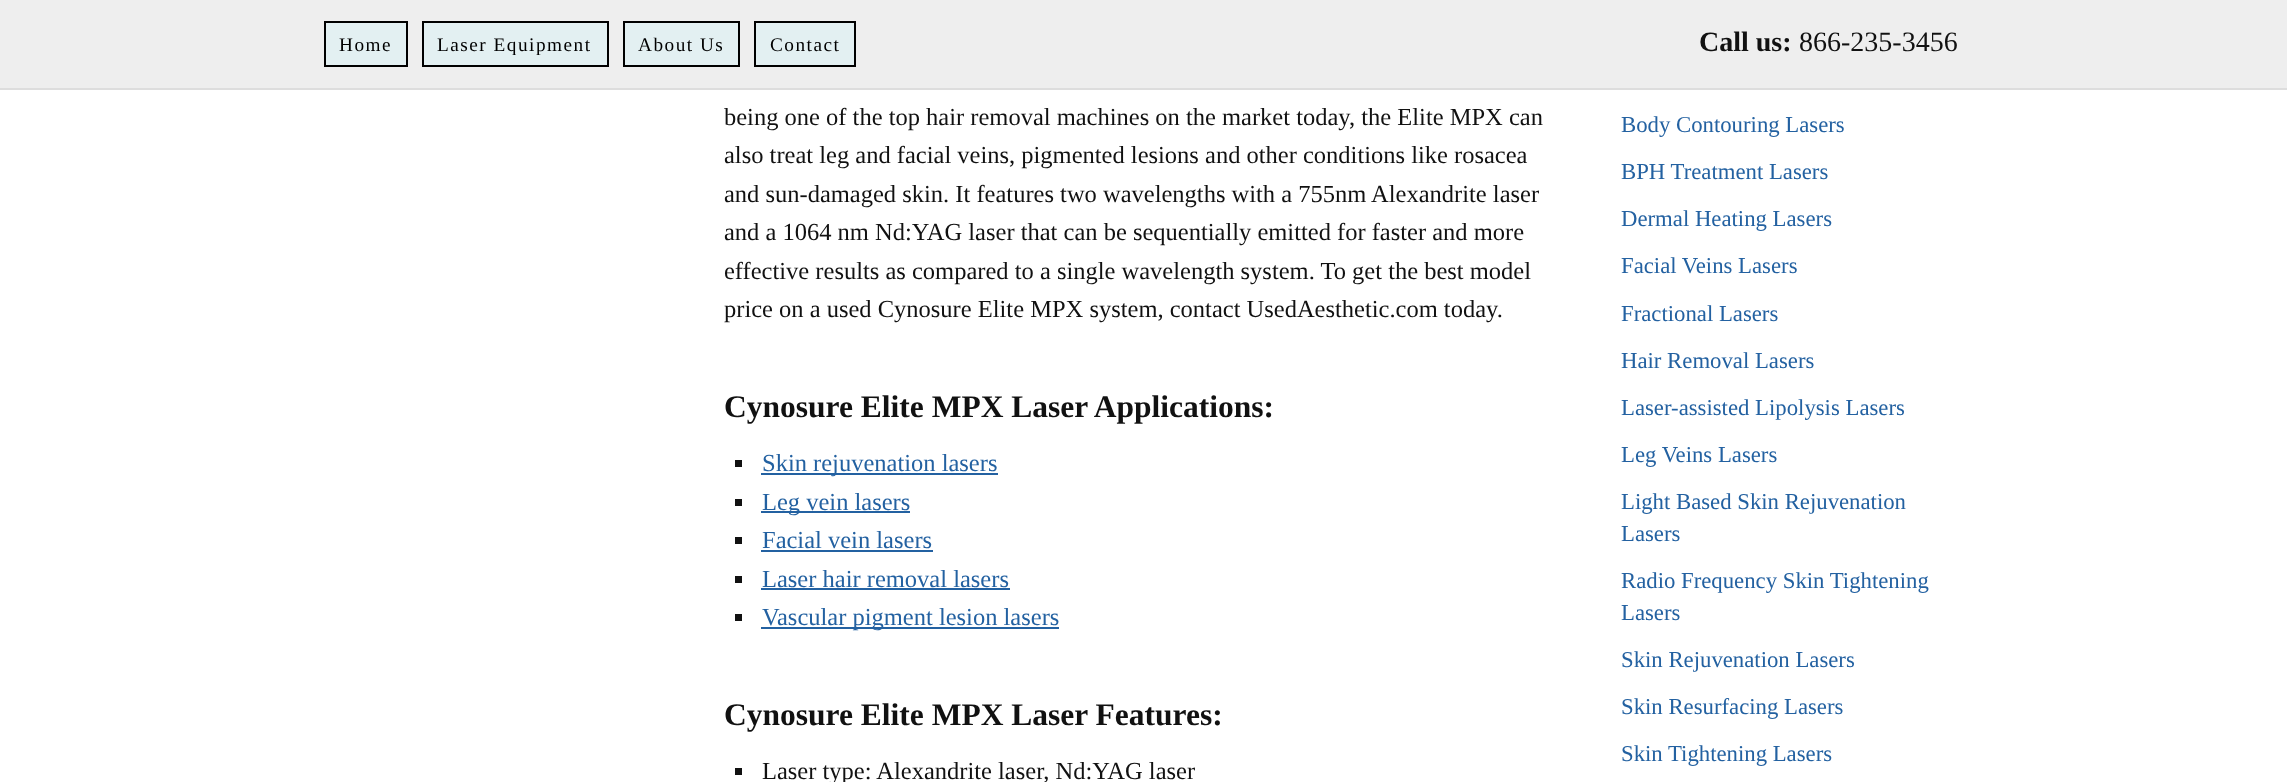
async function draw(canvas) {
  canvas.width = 2287
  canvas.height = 782
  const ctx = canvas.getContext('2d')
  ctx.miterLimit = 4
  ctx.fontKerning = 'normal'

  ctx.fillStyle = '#fff'
  ctx.fillRect(0, 0, 2287, 782)
  ctx.fillStyle = '#eee'
  ctx.fillRect(0, 0, 2287, 88)
  ctx.fillStyle = '#ddd'
  ctx.fillRect(0, 88, 2287, 2)
  ctx.font = 'bold 28px Liberation Serif'
  ctx.fillStyle = '#111'
  ctx.fillText('Call us:', 1699, 51)
  ctx.font = '28px Liberation Serif'
  ctx.fillText('866-235-3456', 1799, 51)
  ctx.fillStyle = '#e3f0f2'
  ctx.beginPath()
  ctx.rect(325, 22, 82, 44)
  ctx.fill()
  ctx.strokeStyle = '#000'
  ctx.lineWidth = 2
  ctx.stroke()
  ctx.letterSpacing = '1.5px'
  ctx.font = '19.25px Liberation Serif'
  ctx.fillStyle = '#000'
  ctx.fillText('Home', 339, 51)
  ctx.fillStyle = '#e3f0f2'
  ctx.beginPath()
  ctx.rect(423, 22, 185, 44)
  ctx.fill()
  ctx.stroke()
  ctx.fillStyle = '#000'
  ctx.fillText('Laser Equipment', 437, 51)
  ctx.fillStyle = '#e3f0f2'
  ctx.beginPath()
  ctx.rect(624, 22, 115, 44)
  ctx.fill()
  ctx.stroke()
  ctx.fillStyle = '#000'
  ctx.fillText('About Us', 638, 51)
  ctx.fillStyle = '#e3f0f2'
  ctx.beginPath()
  ctx.rect(755, 22, 100, 44)
  ctx.fill()
  ctx.stroke()
  ctx.fillStyle = '#000'
  ctx.fillText('Contact', 770, 51)
  ctx.letterSpacing = '0px'
  ctx.font = '24.5px Liberation Serif'
  ctx.fillStyle = '#111'
  ctx.fillText('being one of the top hair removal machines on the market today, the Elite MPX can', 724, 125)
  ctx.fillText('also treat leg and facial veins, pigmented lesions and other conditions like rosacea', 724, 163)
  ctx.fillText('and sun-damaged skin. It features two wavelengths with a 755nm Alexandrite laser', 724, 202)
  ctx.fillText('and a 1064 nm Nd:YAG laser that can be sequentially emitted for faster and more', 724, 240)
  ctx.fillText('effective results as compared to a single wavelength system. To get the best model', 724, 279)
  ctx.fillText('price on a used Cynosure Elite MPX system, contact UsedAesthetic.com today.', 724, 317)
  ctx.font = 'bold 31.5px Liberation Serif'
  ctx.fillText('Cynosure Elite MPX Laser Applications:', 724, 417)
  ctx.fillRect(735, 460, 7, 7)
  ctx.fillStyle = '#2361a1'
  ctx.fillRect(761, 473, 237, 2)
  ctx.font = '24.5px Liberation Serif'
  ctx.fillText('Skin rejuvenation lasers', 762, 471)
  ctx.fillStyle = '#111'
  ctx.fillRect(735, 499, 7, 7)
  ctx.fillStyle = '#2361a1'
  ctx.fillRect(761, 511, 149, 2)
  ctx.fillText('Leg vein lasers', 762, 510)
  ctx.fillStyle = '#111'
  ctx.fillRect(735, 537, 7, 7)
  ctx.fillStyle = '#2361a1'
  ctx.fillText('Facial vein lasers', 762, 548)
  ctx.fillRect(761, 550, 172, 2)
  ctx.fillStyle = '#111'
  ctx.fillRect(735, 576, 7, 7)
  ctx.fillStyle = '#2361a1'
  ctx.fillText('Laser hair removal lasers', 762, 587)
  ctx.fillRect(761, 588, 249, 2)
  ctx.fillStyle = '#111'
  ctx.fillRect(735, 614, 7, 7)
  ctx.fillStyle = '#2361a1'
  ctx.fillRect(761, 627, 298, 2)
  ctx.fillText('Vascular pigment lesion lasers', 762, 625)
  ctx.font = 'bold 31.5px Liberation Serif'
  ctx.fillStyle = '#111'
  ctx.fillText('Cynosure Elite MPX Laser Features:', 724, 725)
  ctx.fillRect(735, 768, 7, 7)
  ctx.font = '24.5px Liberation Serif'
  ctx.fillText('Laser type: Alexandrite laser, Nd:YAG laser', 762, 779)
  ctx.font = '22.75px Liberation Serif'
  ctx.fillStyle = '#2361a1'
  ctx.fillText('Body Contouring Lasers', 1621, 132)
  ctx.fillText('BPH Treatment Lasers', 1621, 179)
  ctx.fillText('Dermal Heating Lasers', 1621, 226)
  ctx.fillText('Facial Veins Lasers', 1621, 273)
  ctx.fillText('Fractional Lasers', 1621, 321)
  ctx.fillText('Hair Removal Lasers', 1621, 368)
  ctx.fillText('Laser-assisted Lipolysis Lasers', 1621, 415)
  ctx.fillText('Leg Veins Lasers', 1621, 462)
  ctx.fillText('Light Based Skin Rejuvenation', 1621, 509)
  ctx.fillText('Lasers', 1621, 541)
  ctx.fillText('Radio Frequency Skin Tightening', 1621, 588)
  ctx.fillText('Lasers', 1621, 620)
  ctx.fillText('Skin Rejuvenation Lasers', 1621, 667)
  ctx.fillText('Skin Resurfacing Lasers', 1621, 714)
  ctx.fillText('Skin Tightening Lasers', 1621, 761)
}

draw(document.querySelector('canvas'))
